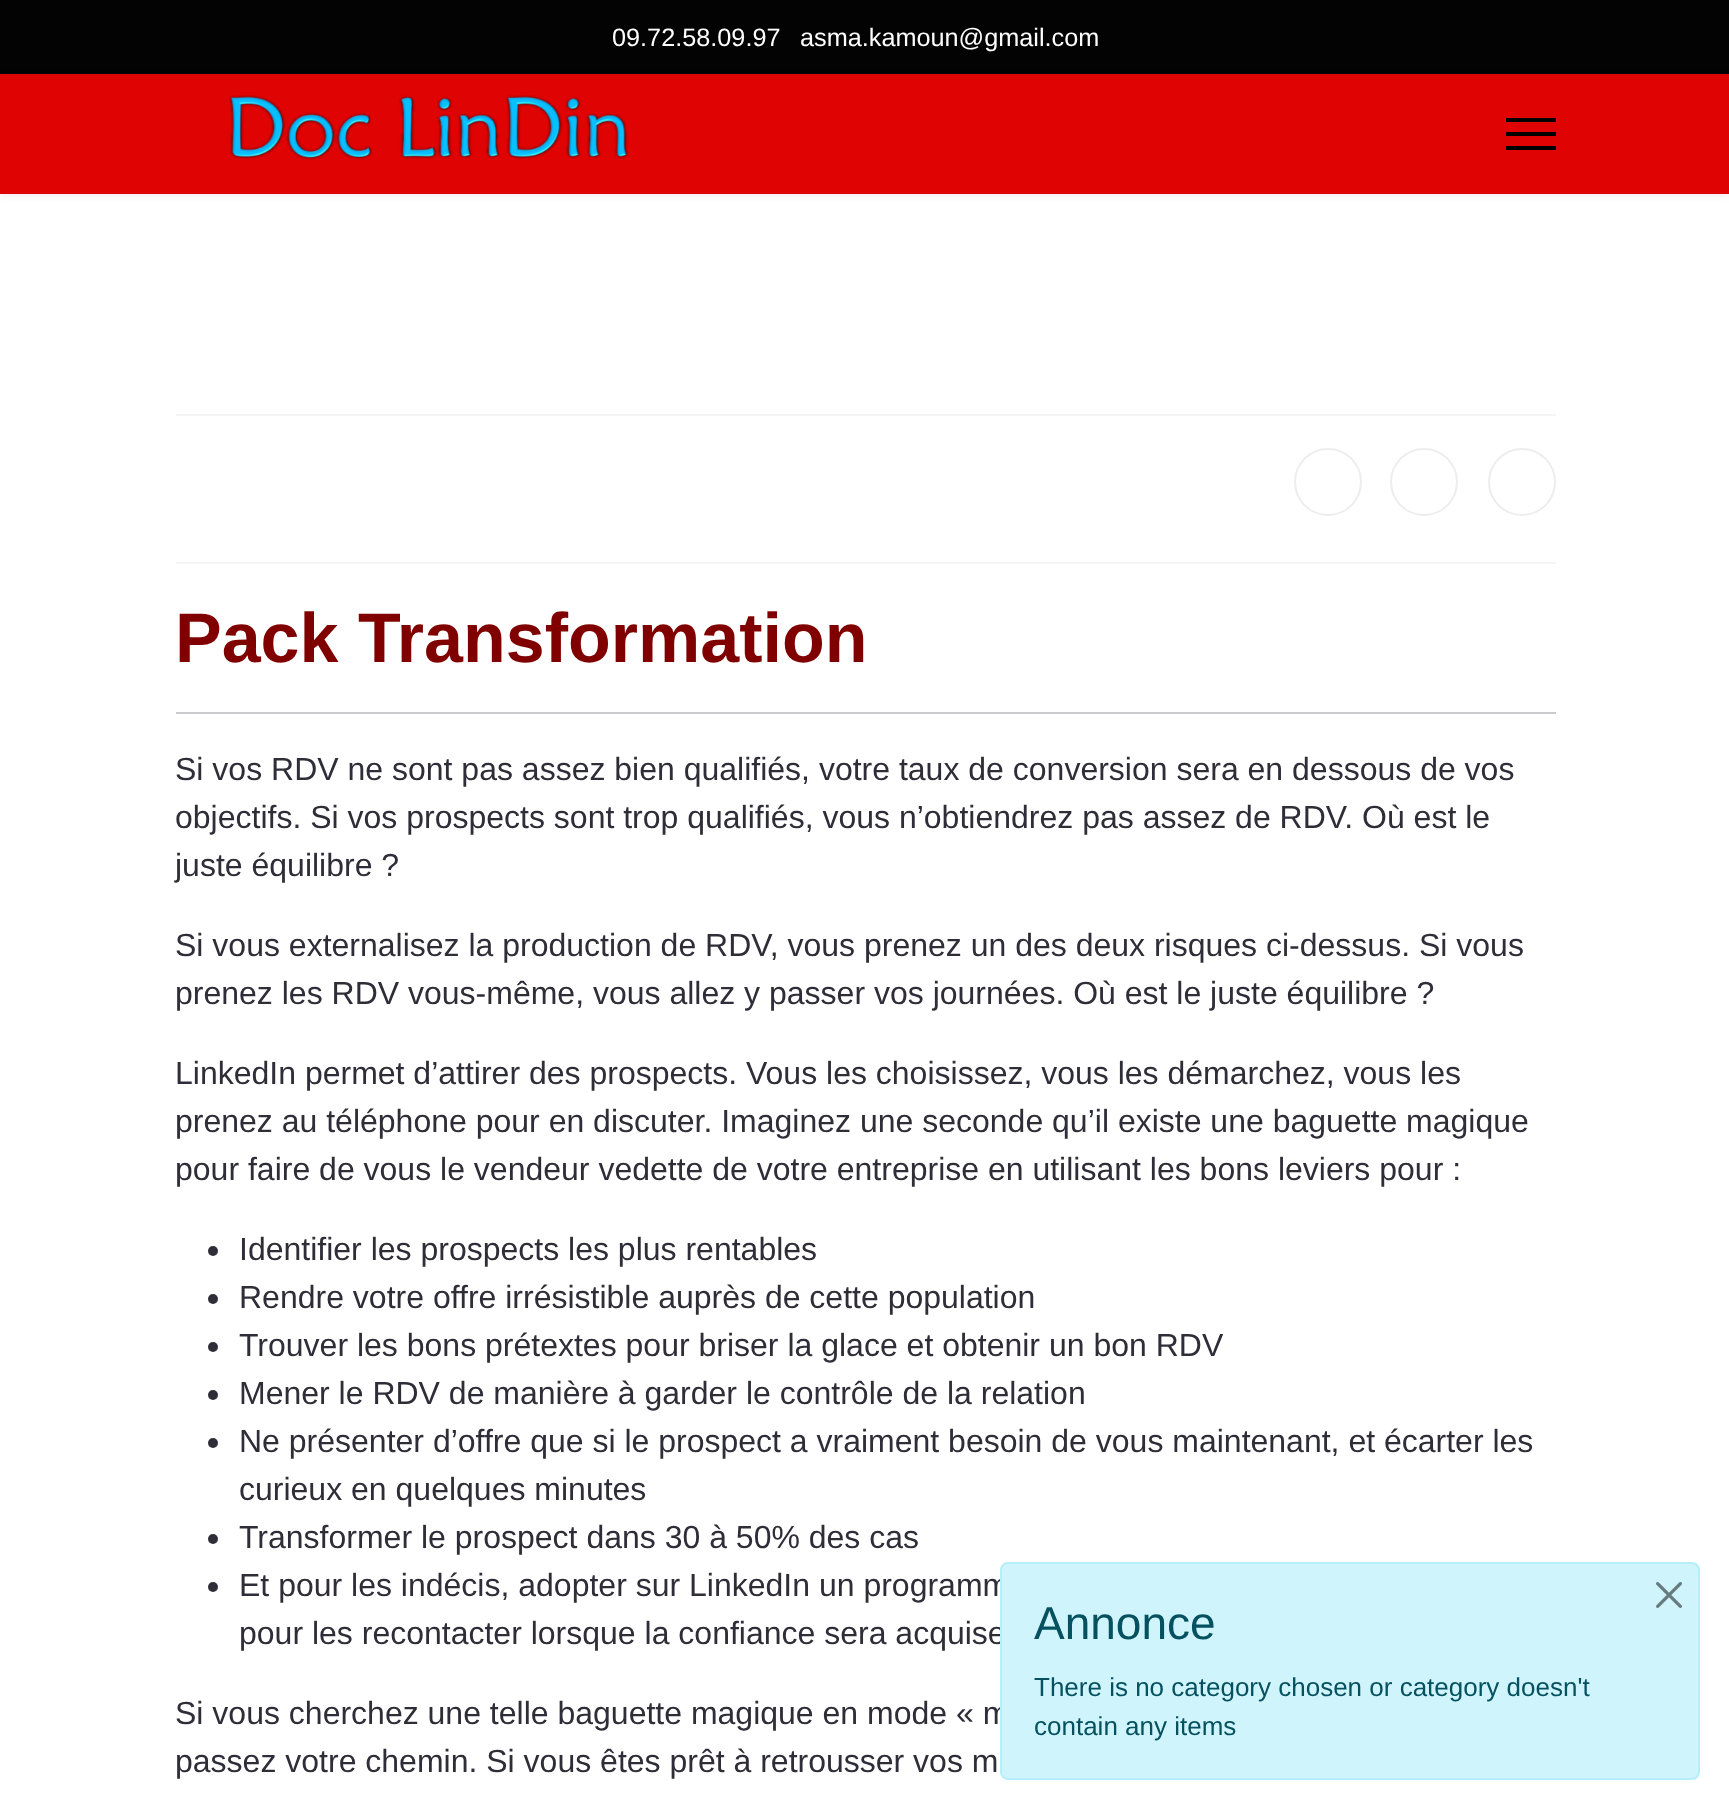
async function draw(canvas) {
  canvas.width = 1729
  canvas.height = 1811
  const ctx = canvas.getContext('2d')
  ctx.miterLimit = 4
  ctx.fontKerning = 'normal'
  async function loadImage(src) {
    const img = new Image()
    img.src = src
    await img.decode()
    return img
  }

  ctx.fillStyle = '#fff'
  ctx.fillRect(0, 0, 1729, 1811)
  ctx.fillStyle = '#030303'
  ctx.fillRect(0, 0, 1729, 74)
  ctx.font = '25.25px Liberation Sans'
  ctx.fillStyle = '#fff'
  ctx.fillText('09.72.58.09.97', 612, 46)
  ctx.fillText('asma.kamoun@gmail.com', 800, 46)
  ctx.fillStyle = '#0000001a'
  ctx.filter = 'blur(4px)'
  ctx.beginPath()
  ctx.rect(0, 74, 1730, 120)
  ctx.fill()
  ctx.filter = 'none'
  ctx.fillStyle = '#e00303'
  ctx.fillRect(0, 74, 1729, 120)
  ctx.drawImage(await loadImage('image0.png'), 229, 95, 400, 65)
  ctx.fillStyle = '#000'
  ctx.fillRect(1506, 118, 50, 4)
  ctx.fillRect(1506, 132, 50, 4)
  ctx.fillRect(1506, 146, 50, 4)
  ctx.fillStyle = '#f5f5f5'
  ctx.fillRect(176, 414, 1380, 2)
  ctx.fillRect(176, 562, 1380, 2)
  ctx.beginPath()
  ctx.arc(1328, 482, 33, 0, 2 * Math.PI)
  ctx.strokeStyle = '#ededed'
  ctx.lineWidth = 2
  ctx.stroke()
  ctx.beginPath()
  ctx.arc(1424, 482, 33, 0, 2 * Math.PI)
  ctx.stroke()
  ctx.beginPath()
  ctx.arc(1522, 482, 33, 0, 2 * Math.PI)
  ctx.stroke()
  ctx.font = 'bold 70px Liberation Sans'
  ctx.fillStyle = '#800000'
  ctx.fillText('Pack Transformation', 175, 662)
  ctx.fillStyle = '#cbcbcd'
  ctx.fillRect(176, 712, 1380, 2)
  ctx.font = '32px Liberation Sans'
  ctx.fillStyle = '#2f2e38'
  ctx.fillText('Si vos RDV ne sont pas assez bien qualifiés, votre taux de conversion sera en dessous de vos', 175, 780)
  ctx.fillText('objectifs. Si vos prospects sont trop qualifiés, vous n’obtiendrez pas assez de RDV. Où est le', 175, 828)
  ctx.fillText('juste équilibre ?', 175, 876)
  ctx.fillText('Si vous externalisez la production de RDV, vous prenez un des deux risques ci-dessus. Si vous', 175, 956)
  ctx.fillText('prenez les RDV vous-même, vous allez y passer vos journées. Où est le juste équilibre ?', 175, 1004)
  ctx.fillText('LinkedIn permet d’attirer des prospects. Vous les choisissez, vous les démarchez, vous les', 175, 1084)
  ctx.fillText('prenez au téléphone pour en discuter. Imaginez une seconde qu’il existe une baguette magique', 175, 1132)
  ctx.fillText('pour faire de vous le vendeur vedette de votre entreprise en utilisant les bons leviers pour :', 175, 1180)
  ctx.beginPath()
  ctx.arc(213, 1251, 5, 0, 2 * Math.PI)
  ctx.fill()
  ctx.fillText('Identifier les prospects les plus rentables', 239, 1260)
  ctx.beginPath()
  ctx.arc(213, 1299, 5, 0, 2 * Math.PI)
  ctx.fill()
  ctx.fillText('Rendre votre offre irrésistible auprès de cette population', 239, 1308)
  ctx.beginPath()
  ctx.arc(213, 1347, 5, 0, 2 * Math.PI)
  ctx.fill()
  ctx.fillText('Trouver les bons prétextes pour briser la glace et obtenir un bon RDV', 239, 1356)
  ctx.beginPath()
  ctx.arc(213, 1395, 5, 0, 2 * Math.PI)
  ctx.fill()
  ctx.fillText('Mener le RDV de manière à garder le contrôle de la relation', 239, 1404)
  ctx.beginPath()
  ctx.arc(213, 1443, 5, 0, 2 * Math.PI)
  ctx.fill()
  ctx.fillText('Ne présenter d’offre que si le prospect a vraiment besoin de vous maintenant, et écarter les', 239, 1452)
  ctx.fillText('curieux en quelques minutes', 239, 1500)
  ctx.beginPath()
  ctx.arc(213, 1539, 5, 0, 2 * Math.PI)
  ctx.fill()
  ctx.fillText('Transformer le prospect dans 30 à 50% des cas', 239, 1548)
  ctx.beginPath()
  ctx.arc(213, 1587, 5, 0, 2 * Math.PI)
  ctx.fill()
  ctx.fillText('Et pour les indécis, adopter sur LinkedIn un programm', 239, 1596)
  ctx.fillText('pour les recontacter lorsque la confiance sera acquise', 239, 1644)
  ctx.fillText('Si vous cherchez une telle baguette magique en mode « m', 175, 1724)
  ctx.fillText('passez votre chemin. Si vous êtes prêt à retrousser vos m', 175, 1772)
  ctx.fillStyle = '#cff4fc'
  ctx.beginPath()
  ctx.roundRect(1001, 1563, 698, 216, 7)
  ctx.fill()
  ctx.strokeStyle = '#b6effb'
  ctx.stroke()
  ctx.drawImage(await loadImage('image1.png'), 1656, 1582, 26, 26)
  ctx.font = '46px Liberation Sans'
  ctx.fillStyle = '#055160'
  ctx.fillText('Annonce', 1034, 1639)
  ctx.font = '26px Liberation Sans'
  ctx.fillText('There is no category chosen or category doesn\'t', 1034, 1696)
  ctx.fillText('contain any items', 1034, 1735)
}

draw(document.querySelector('canvas'))
